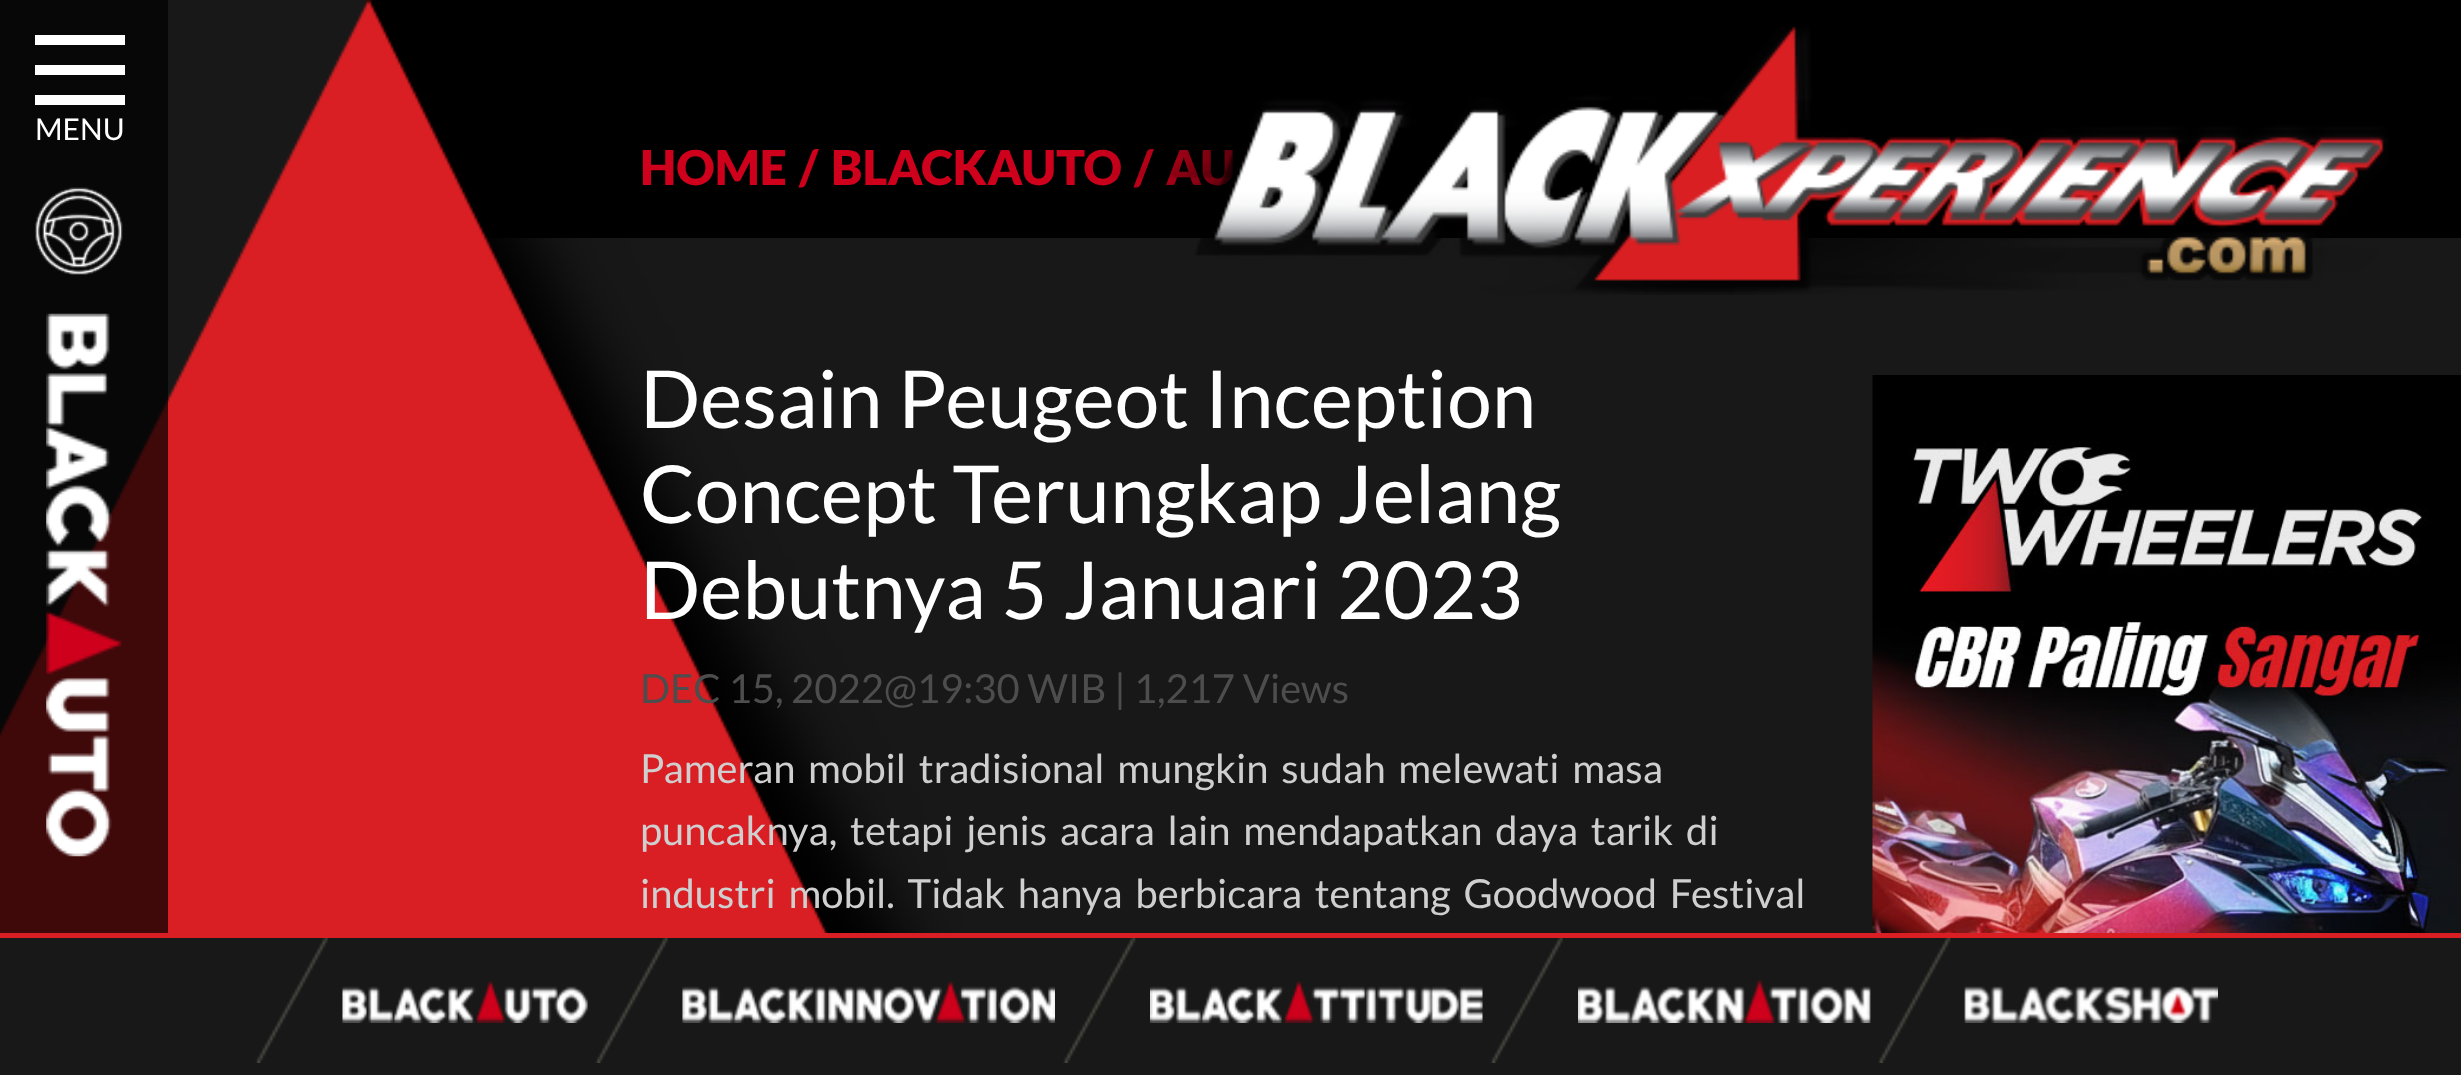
async function draw(canvas) {
  canvas.width = 2461
  canvas.height = 1075
  const ctx = canvas.getContext('2d')
  ctx.miterLimit = 4
  ctx.fontKerning = 'normal'
  async function loadImage(src) {
    const img = new Image()
    img.src = src
    await img.decode()
    return img
  }

  ctx.fillStyle = '#181818'
  ctx.fillRect(0, 0, 2461, 1075)
  ctx.fillStyle = '#000'
  ctx.fillRect(368, 0, 2093, 238)
  ctx.drawImage(await loadImage('image2.png'), 0, 0, 961, 933)
  ctx.fillStyle = '#000000b5'
  ctx.fillRect(0, 0, 168, 933)
  ctx.fillStyle = '#fff'
  ctx.fillRect(35, 35, 90, 10)
  ctx.fillRect(35, 65, 90, 10)
  ctx.fillRect(35, 95, 90, 10)
  ctx.font = '30px Lato'
  ctx.fillText('MENU', 35, 140)
  ctx.drawImage(await loadImage('image0.png'), 35, 187, 88, 88)
  ctx.drawImage(await loadImage('image1.png'), 46, 313, 76, 544)
  ctx.font = '900 48px Lato'
  ctx.fillStyle = '#cf001c'
  ctx.fillText('HOME', 640, 185)
  ctx.fillText('/', 799, 185)
  ctx.fillText('BLACKAUTO', 831, 185)
  ctx.fillText('/', 1134, 185)
  ctx.fillText('AU', 1166, 185)
  ctx.drawImage(await loadImage('image3.png'), 1067, 26, 1322, 269)
  ctx.font = '80px Lato'
  ctx.fillStyle = '#fff'
  ctx.fillText('Desain Peugeot Inception', 640, 428)
  ctx.fillText('Concept Terungkap Jelang', 640, 523)
  ctx.fillText('Debutnya 5 Januari 2023', 640, 619)
  ctx.font = '40px Lato'
  ctx.fillStyle = '#4d4d4d'
  ctx.fillText('DEC 15, 2022@19:30 WIB | 1,217 Views', 640, 703)
  ctx.wordSpacing = '5px'
  ctx.fillStyle = '#cfcfcf'
  ctx.fillText('Pameran mobil tradisional mungkin sudah melewati masa', 640, 783)
  ctx.fillText('puncaknya, tetapi jenis acara lain mendapatkan daya tarik di', 640, 845)
  ctx.fillText('industri mobil. Tidak hanya berbicara tentang Goodwood Festival', 640, 908)
  ctx.drawImage(await loadImage('image4.png'), 1872, 375, 589, 558)
  ctx.fillStyle = '#da1f24'
  ctx.fillRect(0, 933, 2461, 5)
  ctx.drawImage(await loadImage('image5.png'), 255, 938, 73, 125)
  ctx.drawImage(await loadImage('image6.png'), 342, 980, 246, 43)
  ctx.drawImage(await loadImage('image5.png'), 595, 938, 73, 125)
  ctx.drawImage(await loadImage('image7.png'), 682, 980, 373, 43)
  ctx.drawImage(await loadImage('image8.png'), 1063, 938, 73, 125)
  ctx.drawImage(await loadImage('image9.png'), 1150, 980, 333, 43)
  ctx.drawImage(await loadImage('image5.png'), 1490, 938, 73, 125)
  ctx.drawImage(await loadImage('image10.png'), 1578, 979, 293, 44)
  ctx.drawImage(await loadImage('image8.png'), 1878, 938, 73, 125)
  ctx.drawImage(await loadImage('image11.png'), 1964, 986, 254, 37)
}

draw(document.querySelector('canvas'))
